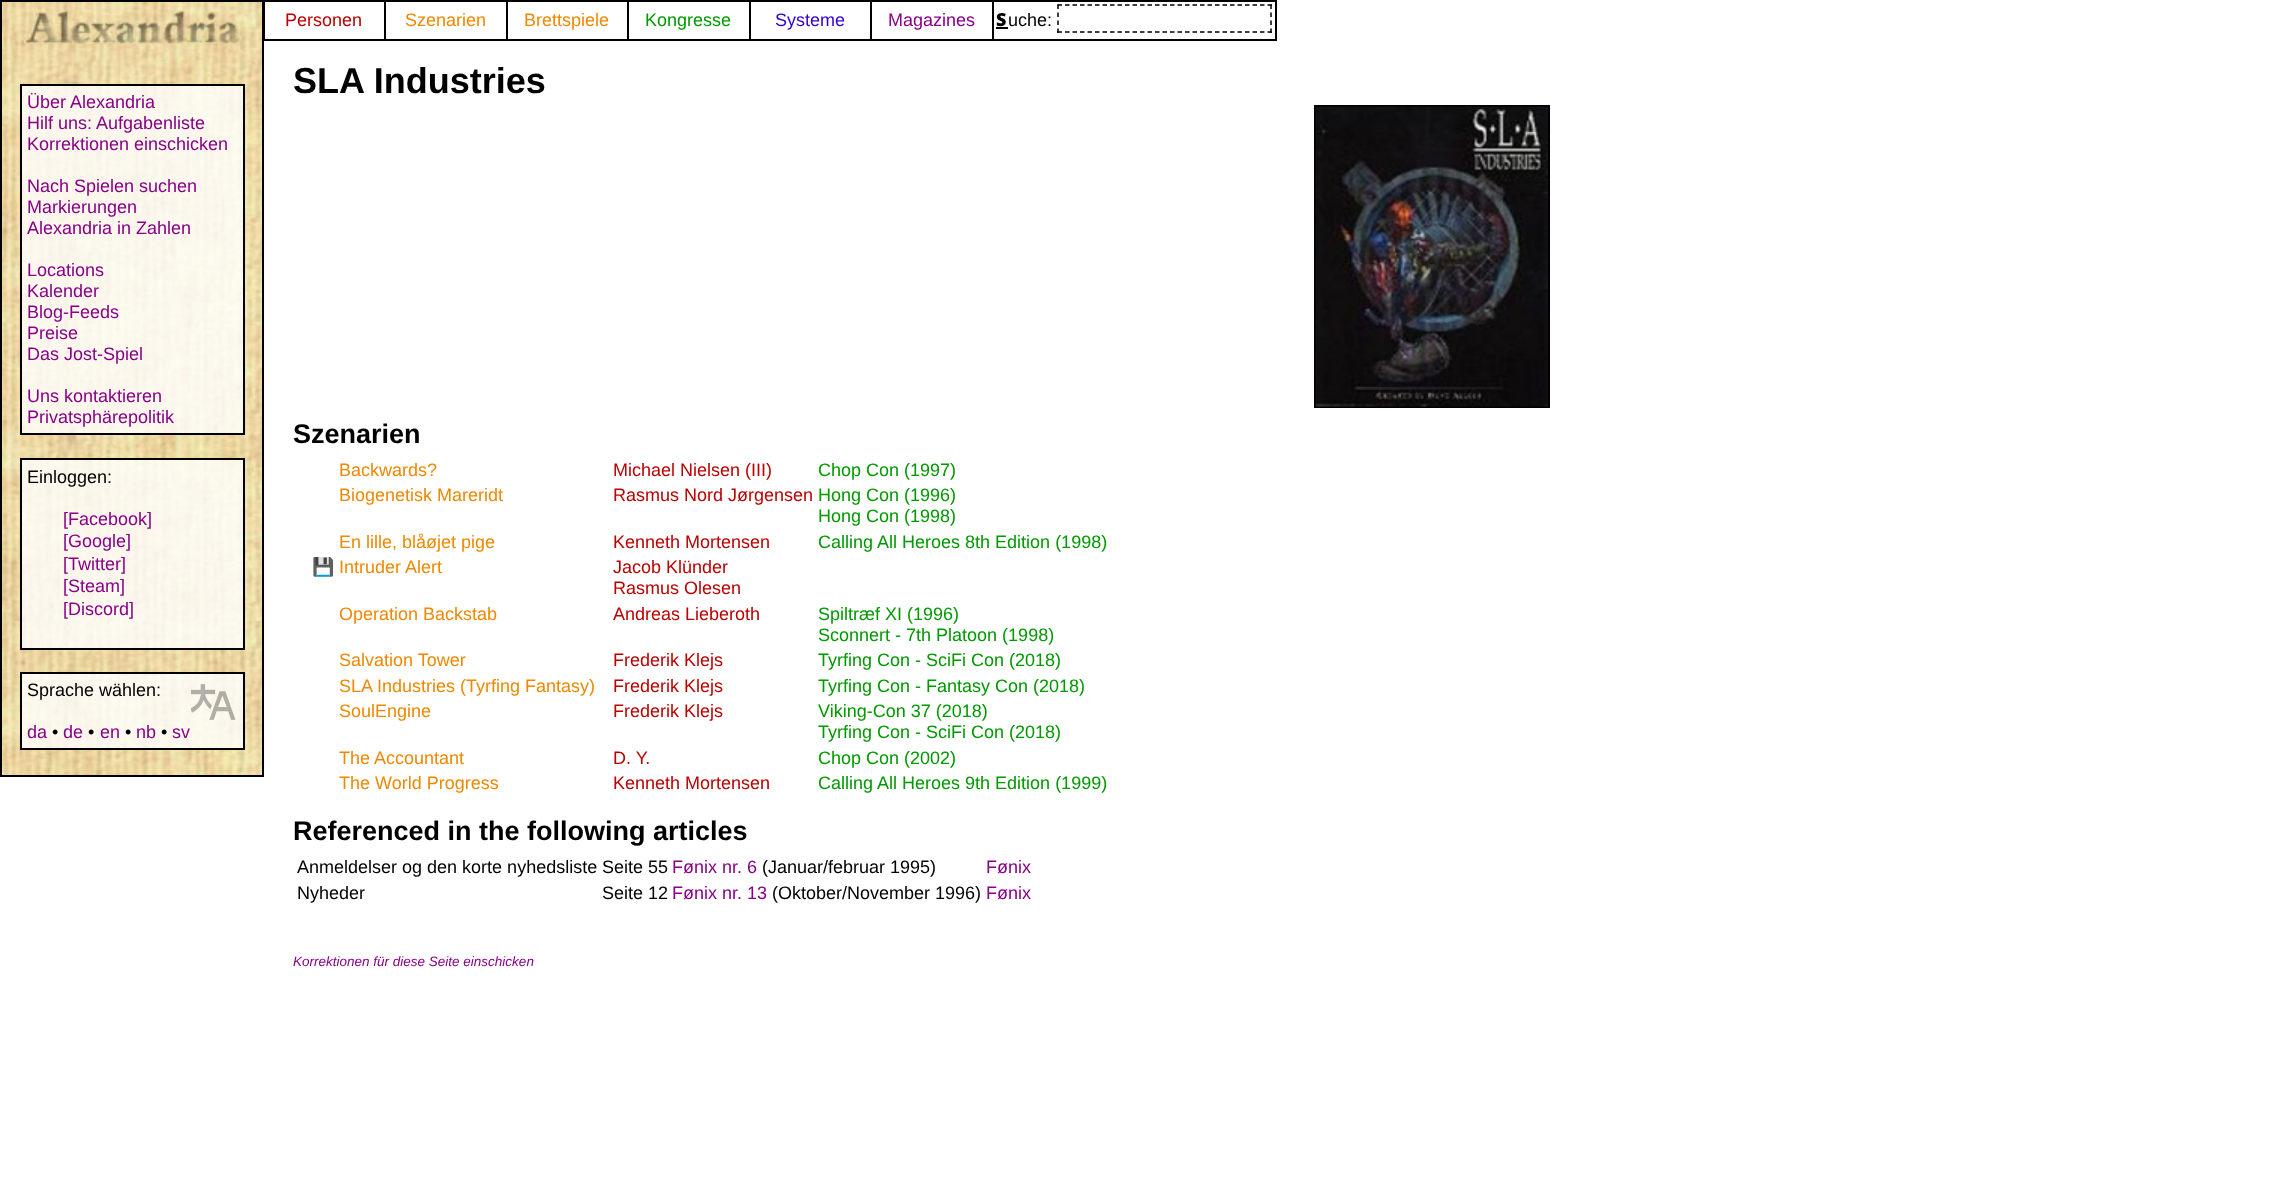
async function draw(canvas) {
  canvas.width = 2292
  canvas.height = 1180
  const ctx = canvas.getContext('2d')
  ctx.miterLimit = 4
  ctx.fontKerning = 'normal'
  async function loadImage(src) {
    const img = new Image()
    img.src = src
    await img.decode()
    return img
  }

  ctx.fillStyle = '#fff'
  ctx.fillRect(0, 0, 2292, 1180)
  ctx.drawImage(await loadImage('image0.png'), 2, 2, 260, 773)
  ctx.strokeStyle = '#000'
  ctx.lineWidth = 2
  ctx.strokeRect(1, 1, 262, 775)
  ctx.strokeRect(264, 1, 1012, 39)
  ctx.fillStyle = '#000'
  ctx.fillRect(384, 2, 2, 37)
  ctx.font = '18px Liberation Sans'
  ctx.fillStyle = '#b00'
  ctx.fillText('Personen', 285, 26)
  ctx.fillStyle = '#000'
  ctx.fillRect(506, 2, 2, 37)
  ctx.fillStyle = '#e80'
  ctx.fillText('Szenarien', 405, 26)
  ctx.fillStyle = '#000'
  ctx.fillRect(627, 2, 2, 37)
  ctx.fillStyle = '#e80'
  ctx.fillText('Brettspiele', 524, 26)
  ctx.fillStyle = '#000'
  ctx.fillRect(749, 2, 2, 37)
  ctx.fillStyle = '#090'
  ctx.fillText('Kongresse', 645, 26)
  ctx.fillStyle = '#000'
  ctx.fillRect(870, 2, 2, 37)
  ctx.fillStyle = '#30c'
  ctx.fillText('Systeme', 775, 26)
  ctx.fillStyle = '#000'
  ctx.fillRect(992, 2, 2, 37)
  ctx.fillStyle = '#808'
  ctx.fillText('Magazines', 888, 26)
  ctx.font = '900 18px Noto Sans'
  ctx.fillStyle = '#000'
  ctx.fillText('S', 996, 26)
  ctx.fillRect(996, 27, 12, 2)
  ctx.font = '18px Liberation Sans'
  ctx.fillText('uche:', 1008, 26)
  ctx.beginPath()
  ctx.moveTo(1057.5, 5)
  ctx.lineTo(1272, 5)
  ctx.lineWidth = 1.5
  ctx.setLineDash([4.5, 3])
  ctx.stroke()
  ctx.beginPath()
  ctx.moveTo(1271, 4.5)
  ctx.lineTo(1271, 33)
  ctx.setLineDash([4.5, 3.5])
  ctx.stroke()
  ctx.beginPath()
  ctx.moveTo(1057.5, 32)
  ctx.lineTo(1272, 32)
  ctx.setLineDash([4.5, 3])
  ctx.stroke()
  ctx.beginPath()
  ctx.moveTo(1058, 4.5)
  ctx.lineTo(1058, 33)
  ctx.setLineDash([4.5, 3.5])
  ctx.stroke()
  ctx.drawImage(await loadImage('image1.png'), 23, 10, 223, 38)
  ctx.fillStyle = '#ffffffcc'
  ctx.beginPath()
  ctx.rect(21, 85, 223, 349)
  ctx.fill()
  ctx.lineWidth = 2
  ctx.setLineDash([])
  ctx.stroke()
  ctx.fillStyle = '#808'
  ctx.fillText('Über Alexandria', 27, 108)
  ctx.fillText('Hilf uns: Aufgabenliste', 27, 129)
  ctx.fillText('Korrektionen einschicken', 27, 150)
  ctx.fillText('Nach Spielen suchen', 27, 192)
  ctx.fillText('Markierungen', 27, 213)
  ctx.fillText('Alexandria in Zahlen', 27, 234)
  ctx.fillText('Locations', 27, 276)
  ctx.fillText('Kalender', 27, 297)
  ctx.fillText('Blog-Feeds', 27, 318)
  ctx.fillText('Preise', 27, 339)
  ctx.fillText('Das Jost-Spiel', 27, 360)
  ctx.fillText('Uns kontaktieren', 27, 402)
  ctx.fillText('Privatsphärepolitik', 27, 423)
  ctx.fillStyle = '#ffffffcc'
  ctx.beginPath()
  ctx.rect(21, 459, 223, 190)
  ctx.fill()
  ctx.stroke()
  ctx.fillStyle = '#000'
  ctx.fillText('Einloggen:', 27, 483)
  ctx.fillStyle = '#808'
  ctx.fillText('[Facebook]', 63, 525)
  ctx.fillText('[Google]', 63, 547)
  ctx.fillText('[Twitter]', 63, 570)
  ctx.fillText('[Steam]', 63, 592)
  ctx.fillText('[Discord]', 63, 615)
  ctx.fillStyle = '#ffffffcc'
  ctx.beginPath()
  ctx.rect(21, 673, 223, 76)
  ctx.fill()
  ctx.stroke()
  ctx.fillStyle = '#000'
  ctx.fillText('Sprache wählen:', 27, 696)
  ctx.drawImage(await loadImage('image2.png'), 191, 684, 45, 36)
  ctx.fillStyle = '#808'
  ctx.fillText('da', 27, 738)
  ctx.fillStyle = '#000'
  ctx.fillText('•', 52, 738)
  ctx.fillStyle = '#808'
  ctx.fillText('de', 63, 738)
  ctx.fillStyle = '#000'
  ctx.fillText('•', 88, 738)
  ctx.fillStyle = '#808'
  ctx.fillText('en', 100, 738)
  ctx.fillStyle = '#000'
  ctx.fillText('•', 125, 738)
  ctx.fillStyle = '#808'
  ctx.fillText('nb', 136, 738)
  ctx.fillStyle = '#000'
  ctx.fillText('•', 161, 738)
  ctx.fillStyle = '#808'
  ctx.fillText('sv', 172, 738)
  ctx.font = 'bold 36px Liberation Sans'
  ctx.fillStyle = '#000'
  ctx.fillText('SLA Industries', 293, 93)
  ctx.strokeRect(1315, 106, 234, 301)
  ctx.drawImage(await loadImage('image3.png'), 1315, 106, 233, 301)
  ctx.font = 'bold 27px Liberation Sans'
  ctx.fillText('Szenarien', 293, 443)
  ctx.font = '18px Liberation Sans'
  ctx.fillStyle = '#e80'
  ctx.fillText('Backwards?', 339, 476)
  ctx.fillStyle = '#b00'
  ctx.fillText('Michael Nielsen (III)', 613, 476)
  ctx.fillStyle = '#090'
  ctx.fillText('Chop Con (1997)', 818, 476)
  ctx.fillStyle = '#e80'
  ctx.fillText('Biogenetisk Mareridt', 339, 501)
  ctx.fillStyle = '#b00'
  ctx.fillText('Rasmus Nord Jørgensen', 613, 501)
  ctx.fillStyle = '#090'
  ctx.fillText('Hong Con (1996)', 818, 501)
  ctx.fillText('Hong Con (1998)', 818, 522)
  ctx.fillStyle = '#e80'
  ctx.fillText('En lille, blåøjet pige', 339, 548)
  ctx.fillStyle = '#b00'
  ctx.fillText('Kenneth Mortensen', 613, 548)
  ctx.fillStyle = '#090'
  ctx.fillText('Calling All Heroes 8th Edition (1998)', 818, 548)
  ctx.font = '18px Noto Color Emoji'
  ctx.fillStyle = '#808'
  ctx.fillText('💾', 312, 573)
  ctx.font = '18px Liberation Sans'
  ctx.fillStyle = '#e80'
  ctx.fillText('Intruder Alert', 339, 573)
  ctx.fillStyle = '#b00'
  ctx.fillText('Jacob Klünder', 613, 573)
  ctx.fillText('Rasmus Olesen', 613, 594)
  ctx.fillStyle = '#e80'
  ctx.fillText('Operation Backstab', 339, 620)
  ctx.fillStyle = '#b00'
  ctx.fillText('Andreas Lieberoth', 613, 620)
  ctx.fillStyle = '#090'
  ctx.fillText('Spiltræf XI (1996)', 818, 620)
  ctx.fillText('Sconnert - 7th Platoon (1998)', 818, 641)
  ctx.fillStyle = '#e80'
  ctx.fillText('Salvation Tower', 339, 666)
  ctx.fillStyle = '#b00'
  ctx.fillText('Frederik Klejs', 613, 666)
  ctx.fillStyle = '#090'
  ctx.fillText('Tyrfing Con - SciFi Con (2018)', 818, 666)
  ctx.fillStyle = '#e80'
  ctx.fillText('SLA Industries (Tyrfing Fantasy)', 339, 692)
  ctx.fillStyle = '#b00'
  ctx.fillText('Frederik Klejs', 613, 692)
  ctx.fillStyle = '#090'
  ctx.fillText('Tyrfing Con - Fantasy Con (2018)', 818, 692)
  ctx.fillStyle = '#e80'
  ctx.fillText('SoulEngine', 339, 717)
  ctx.fillStyle = '#b00'
  ctx.fillText('Frederik Klejs', 613, 717)
  ctx.fillStyle = '#090'
  ctx.fillText('Viking-Con 37 (2018)', 818, 717)
  ctx.fillText('Tyrfing Con - SciFi Con (2018)', 818, 738)
  ctx.fillStyle = '#e80'
  ctx.fillText('The Accountant', 339, 764)
  ctx.fillStyle = '#b00'
  ctx.fillText('D. Y.', 613, 764)
  ctx.fillStyle = '#090'
  ctx.fillText('Chop Con (2002)', 818, 764)
  ctx.fillStyle = '#e80'
  ctx.fillText('The World Progress', 339, 789)
  ctx.fillStyle = '#b00'
  ctx.fillText('Kenneth Mortensen', 613, 789)
  ctx.fillStyle = '#090'
  ctx.fillText('Calling All Heroes 9th Edition (1999)', 818, 789)
  ctx.font = 'bold 27px Liberation Sans'
  ctx.fillStyle = '#000'
  ctx.fillText('Referenced in the following articles', 293, 840)
  ctx.font = '18px Liberation Sans'
  ctx.fillText('Anmeldelser og den korte nyhedsliste', 297, 873)
  ctx.fillText('Seite 55', 602, 873)
  ctx.fillStyle = '#808'
  ctx.fillText('Fønix nr. 6', 672, 873)
  ctx.fillStyle = '#000'
  ctx.fillText('(Januar/februar 1995)', 762, 873)
  ctx.fillStyle = '#808'
  ctx.fillText('Fønix', 986, 873)
  ctx.fillStyle = '#000'
  ctx.fillText('Nyheder', 297, 899)
  ctx.fillText('Seite 12', 602, 899)
  ctx.fillStyle = '#808'
  ctx.fillText('Fønix nr. 13', 672, 899)
  ctx.fillStyle = '#000'
  ctx.fillText('(Oktober/November 1996)', 772, 899)
  ctx.fillStyle = '#808'
  ctx.fillText('Fønix', 986, 899)
  ctx.font = 'italic 13.5px Liberation Sans'
  ctx.fillText('Korrektionen für diese Seite einschicken', 293, 966)
}

draw(document.querySelector('canvas'))
